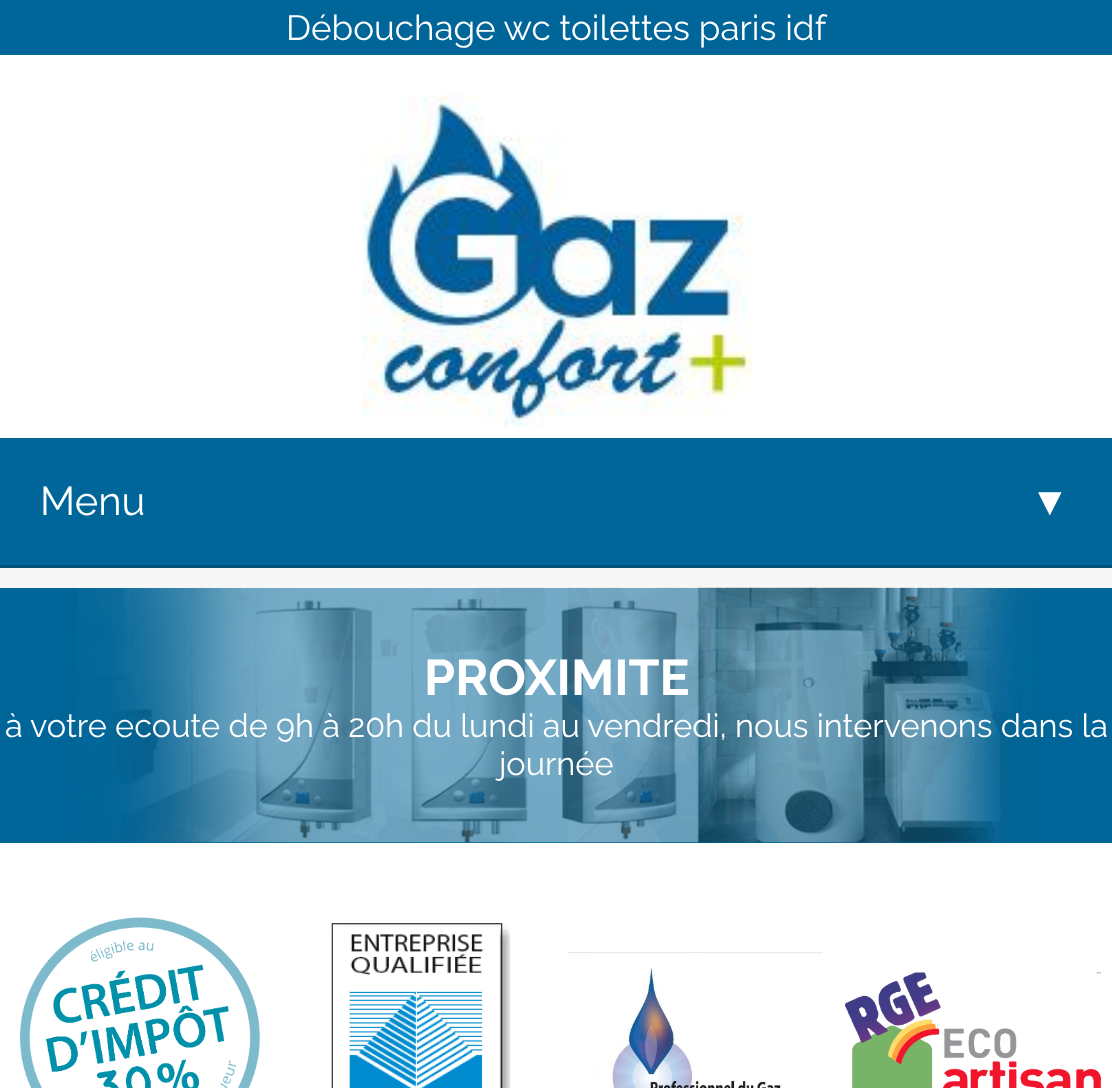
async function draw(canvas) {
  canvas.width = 1112
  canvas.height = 1088
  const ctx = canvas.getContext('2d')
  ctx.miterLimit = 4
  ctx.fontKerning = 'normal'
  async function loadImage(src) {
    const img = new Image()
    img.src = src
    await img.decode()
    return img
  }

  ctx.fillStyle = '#fff'
  ctx.fillRect(0, 0, 1112, 1088)
  ctx.fillStyle = '#069'
  ctx.fillRect(0, 0, 1112, 55)
  ctx.font = '35px Raleway'
  ctx.fillStyle = '#fff'
  ctx.fillText('Débouchage wc toilettes paris idf', 286, 40)
  ctx.drawImage(await loadImage('image0.png'), 362, 95, 391, 333)
  ctx.fillStyle = '#f7f7f7'
  ctx.fillRect(0, 568, 1112, 20)
  ctx.fillStyle = '#069'
  ctx.fillRect(0, 438, 1112, 127)
  ctx.fillStyle = '#00527a'
  ctx.fillRect(0, 565, 1112, 3)
  ctx.font = '40px Raleway'
  ctx.fillStyle = '#fff'
  ctx.fillText('Menu', 40, 515)
  ctx.font = 'italic 40px Liberation Sans'
  ctx.fillText('▼', 1030, 515)
  ctx.fillStyle = '#069'
  ctx.fillRect(0, 588, 1112, 255)
  ctx.drawImage(await loadImage('image2.png'), 79, 587, 921, 256)
  ctx.drawImage(await loadImage('image1.png'), 77, 587, 962, 256)
  ctx.font = 'bold 50px Raleway'
  ctx.fillStyle = '#fff'
  ctx.fillText('PROXIMITE', 424, 695)
  ctx.font = '32.5px Raleway'
  ctx.fillText('à votre ecoute de 9h à 20h du lundi au vendredi, nous intervenons dans la', 5, 737)
  ctx.fillText('journée', 499, 775)
  ctx.drawImage(await loadImage('image3.png'), 20, 917, 240, 171)
  ctx.drawImage(await loadImage('image4.png'), 331, 923, 179, 165)
  ctx.drawImage(await loadImage('image5.png'), 567, 952, 256, 136)
  ctx.drawImage(await loadImage('image6.png'), 845, 972, 257, 116)
}

draw(document.querySelector('canvas'))
